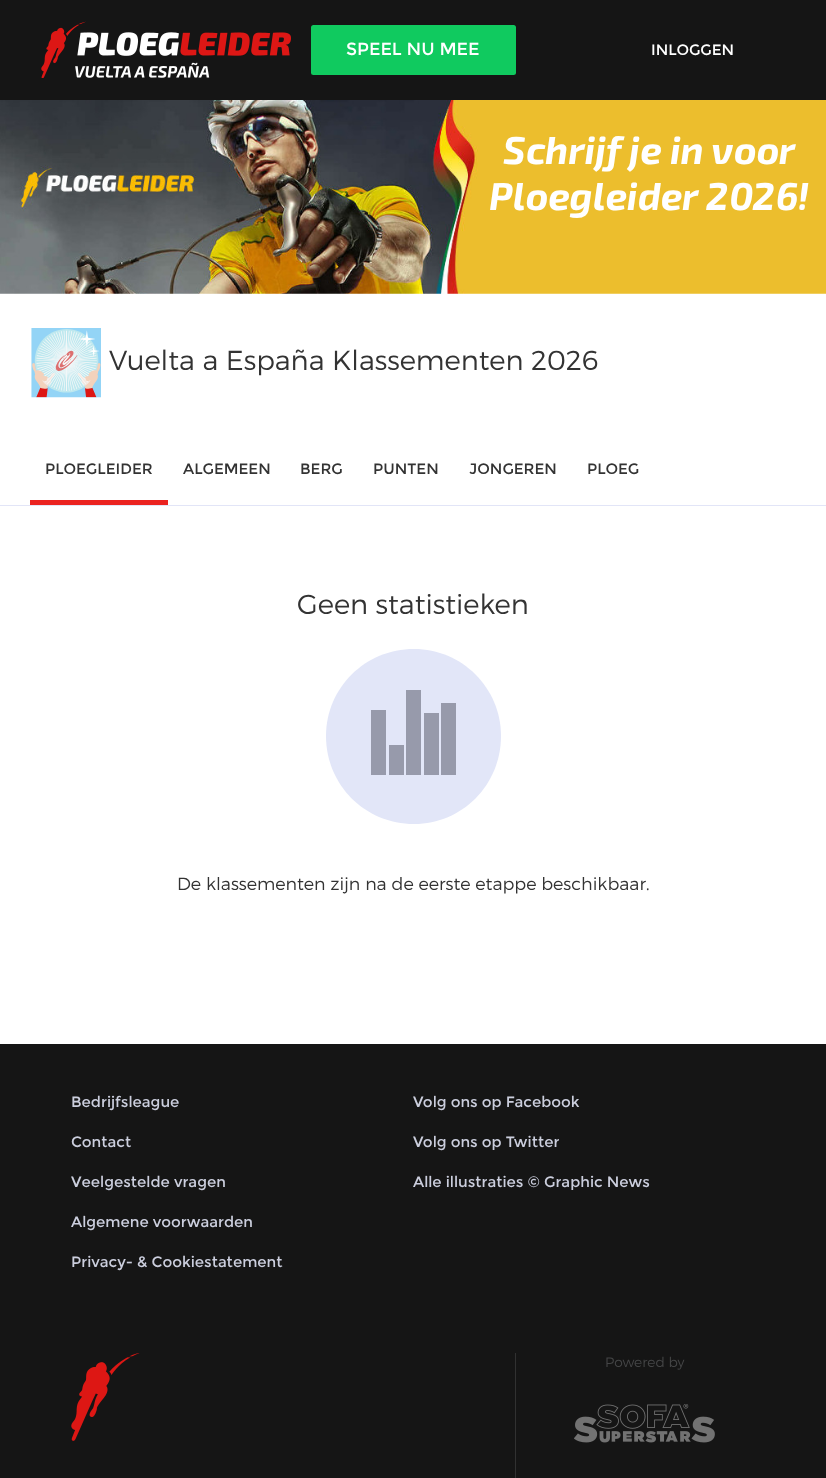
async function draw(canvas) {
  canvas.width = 826
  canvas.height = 1478
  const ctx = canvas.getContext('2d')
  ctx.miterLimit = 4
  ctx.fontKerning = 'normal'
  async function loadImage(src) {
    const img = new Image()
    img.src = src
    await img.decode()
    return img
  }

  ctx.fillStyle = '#fff'
  ctx.fillRect(0, 0, 826, 1478)
  ctx.fillStyle = '#151515'
  ctx.fillRect(0, 0, 826, 100)
  ctx.drawImage(await loadImage('image0.png'), 41, 21, 250, 57)
  ctx.fillStyle = '#10ca5f'
  ctx.beginPath()
  ctx.roundRect(311, 25, 205, 50, 2.5)
  ctx.fill()
  ctx.font = '17.5px Montserrat'
  ctx.fillStyle = '#fff'
  ctx.fillText('SPEEL NU MEE', 346, 55)
  ctx.font = '15px Montserrat'
  ctx.fillText('INLOGGEN', 651, 55)
  ctx.drawImage(await loadImage('image1.png'), 0, 100, 826, 194)
  ctx.font = 'italic bold 38.75px "Exo 2"'
  ctx.fillText('Schrijf je in voor', 503, 164)
  ctx.fillText('Ploegleider 2026!', 489, 210)
  ctx.drawImage(await loadImage('image2.png'), 31, 328, 70, 70)
  ctx.font = '300 27.5px Montserrat'
  ctx.fillStyle = '#333'
  ctx.fillText('Vuelta a España Klassementen 2026', 109, 370)
  ctx.fillStyle = '#e2e5f7'
  ctx.fillRect(0, 505, 826, 1)
  ctx.font = '15px Montserrat'
  ctx.fillStyle = '#333'
  ctx.fillText('PLOEGLEIDER', 45, 474)
  ctx.fillStyle = '#eb2320'
  ctx.fillRect(30, 500, 138, 5)
  ctx.fillStyle = '#333'
  ctx.fillText('ALGEMEEN', 183, 474)
  ctx.fillText('BERG', 300, 474)
  ctx.fillText('PUNTEN', 373, 474)
  ctx.fillText('JONGEREN', 469, 474)
  ctx.fillText('PLOEG', 587, 474)
  ctx.font = '300 27.5px Montserrat'
  ctx.fillText('Geen statistieken', 297, 614)
  ctx.fillStyle = '#e2e6f8'
  ctx.beginPath()
  ctx.moveTo(414, 824)
  ctx.bezierCurveTo(462, 824, 501, 785, 501, 736)
  ctx.bezierCurveTo(501, 688, 462, 649, 414, 649)
  ctx.bezierCurveTo(365, 649, 326, 688, 326, 736)
  ctx.bezierCurveTo(326, 785, 365, 824, 414, 824)
  ctx.closePath()
  ctx.fill('evenodd')
  ctx.fillStyle = '#979aab'
  ctx.fillRect(371, 710, 15, 65)
  ctx.fillRect(389, 745, 15, 30)
  ctx.fillRect(406, 690, 15, 85)
  ctx.fillRect(424, 713, 15, 62)
  ctx.fillRect(441, 703, 15, 72)
  ctx.font = '300 17.5px Montserrat'
  ctx.fillStyle = '#333'
  ctx.fillText('De klassementen zijn na de eerste etappe beschikbaar.', 177, 890)
  ctx.fillStyle = '#151515'
  ctx.fillRect(0, 1044, 826, 434)
  ctx.font = '15px Montserrat'
  ctx.fillStyle = '#cbcedd'
  ctx.fillText('Bedrijfsleague', 71, 1107)
  ctx.fillText('Contact', 71, 1147)
  ctx.fillText('Veelgestelde vragen', 71, 1187)
  ctx.fillText('Algemene voorwaarden', 71, 1227)
  ctx.fillText('Privacy- & Cookiestatement', 71, 1267)
  ctx.fillText('Volg ons op Facebook', 413, 1107)
  ctx.fillText('Volg ons op Twitter', 413, 1147)
  ctx.fillText('Alle illustraties © Graphic News', 413, 1187)
  ctx.fillStyle = '#313131'
  ctx.fillRect(515, 1353, 1, 125)
  ctx.drawImage(await loadImage('image3.png'), 71, 1353, 69, 88)
  ctx.font = '300 13.75px Montserrat'
  ctx.fillStyle = '#444546'
  ctx.fillText('Powered by', 605, 1367)
  ctx.drawImage(await loadImage('image4.png'), 574, 1404, 141, 39)
}

draw(document.querySelector('canvas'))
